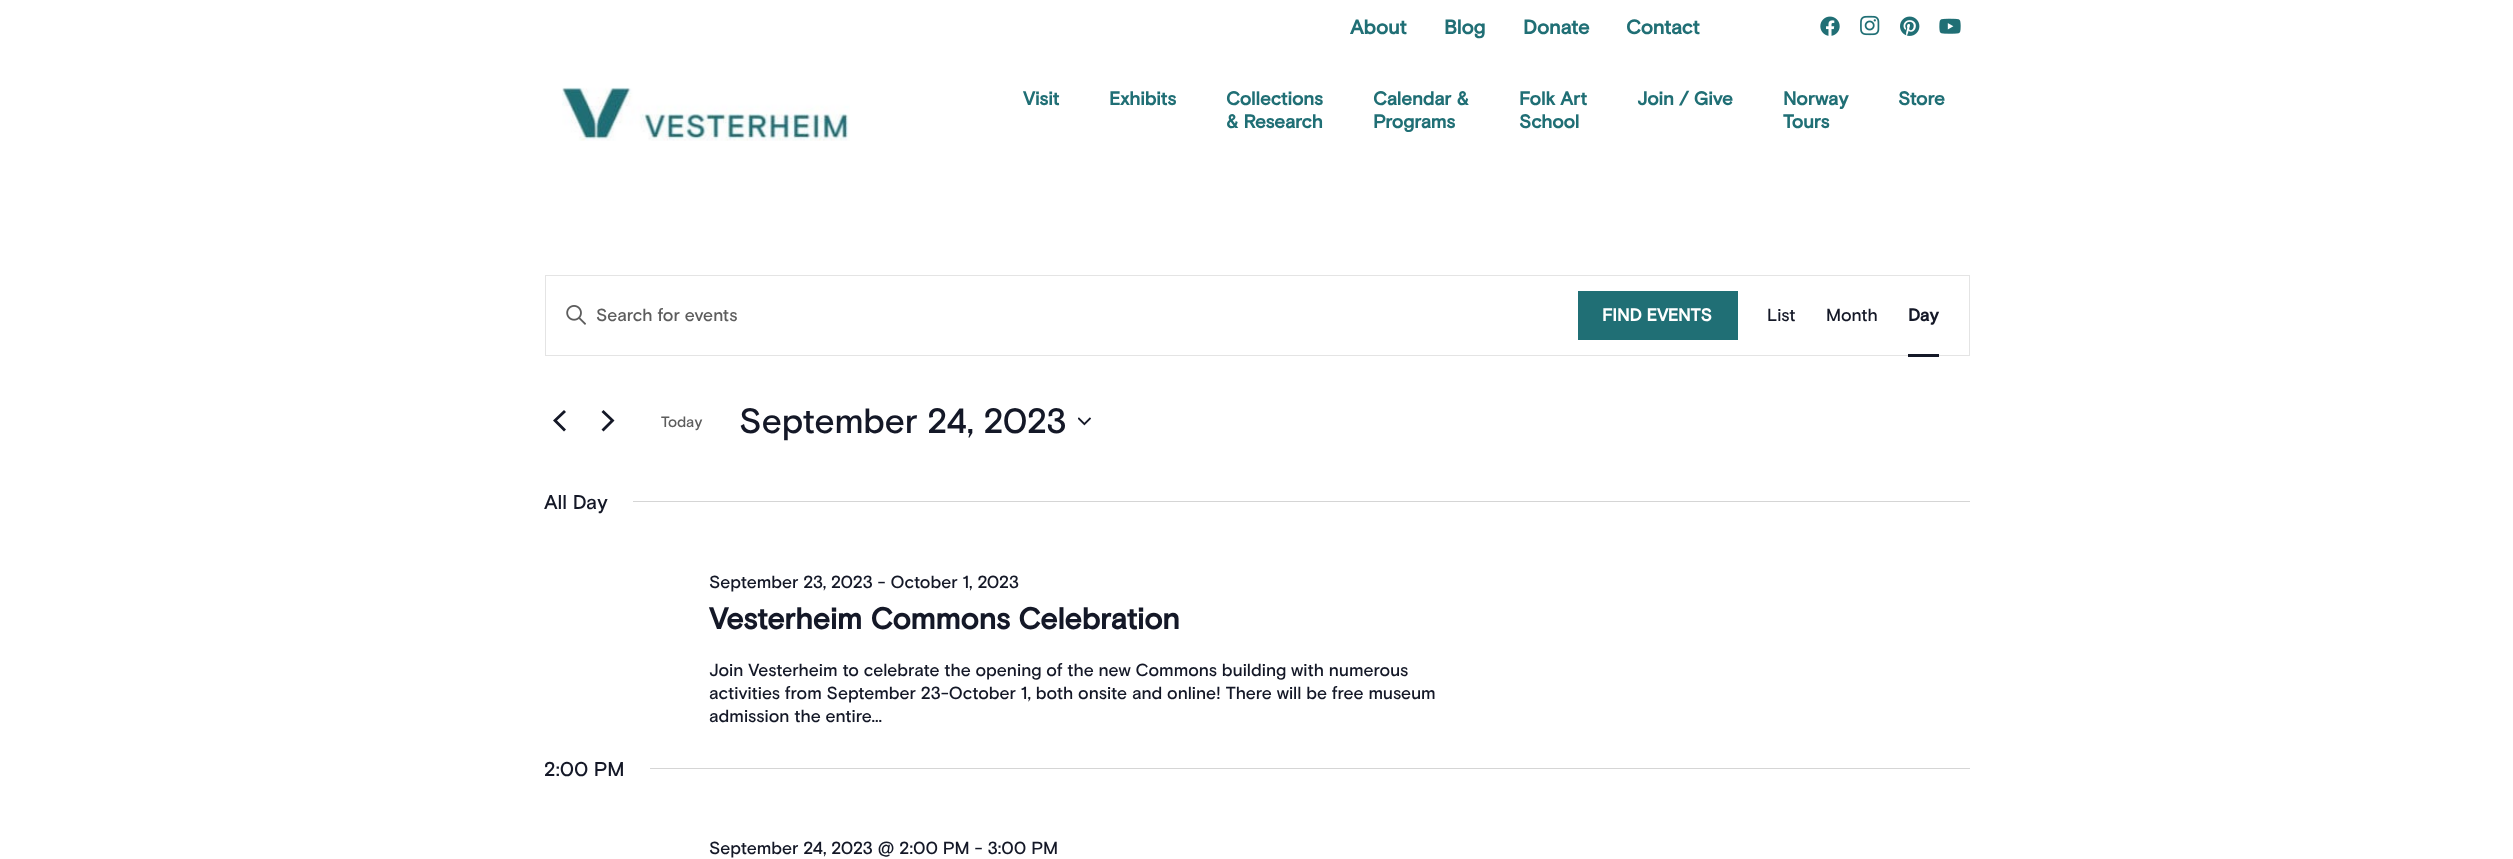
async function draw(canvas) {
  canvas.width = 2513
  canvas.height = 859
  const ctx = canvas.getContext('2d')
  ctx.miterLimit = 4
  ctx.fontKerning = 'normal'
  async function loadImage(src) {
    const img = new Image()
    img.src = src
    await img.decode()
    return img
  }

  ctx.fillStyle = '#fff'
  ctx.fillRect(0, 0, 2513, 859)
  ctx.font = 'bold 20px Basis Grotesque'
  ctx.fillStyle = '#206f75'
  ctx.fillText('About', 1350, 34)
  ctx.fillText('Blog', 1444, 34)
  ctx.fillText('Donate', 1523, 34)
  ctx.fillText('Contact', 1626, 34)
  ctx.drawImage(await loadImage('image0.png'), 1820, 16, 20, 20)
  ctx.drawImage(await loadImage('image1.png'), 1860, 15, 20, 21)
  ctx.drawImage(await loadImage('image2.png'), 1900, 16, 20, 20)
  ctx.drawImage(await loadImage('image3.png'), 1939, 18, 22, 16)
  ctx.drawImage(await loadImage('image4.png'), 562, 87, 288, 54)
  ctx.font = 'bold 18.75px Basis Grotesque'
  ctx.fillText('Visit', 1023, 105)
  ctx.fillText('Exhibits', 1109, 105)
  ctx.fillText('Collections', 1226, 105)
  ctx.fillText('& Research', 1226, 128)
  ctx.fillText('Calendar &', 1373, 105)
  ctx.fillText('Programs', 1373, 128)
  ctx.fillText('Folk Art', 1519, 105)
  ctx.fillText('School', 1519, 128)
  ctx.fillText('Join / Give', 1637, 105)
  ctx.fillText('Norway', 1783, 105)
  ctx.fillText('Tours', 1783, 128)
  ctx.fillText('Store', 1898, 105)
  ctx.strokeStyle = '#e4e4e4'
  ctx.strokeRect(545.5, 275.5, 1424, 80)
  ctx.drawImage(await loadImage('image5.png'), 566, 305, 20, 20)
  ctx.font = '500 17.5px Basis Grotesque'
  ctx.fillStyle = '#5d5d5d'
  ctx.fillText('Search for events', 596, 321)
  ctx.fillStyle = '#206f75'
  ctx.fillRect(1578, 291, 160, 49)
  ctx.font = 'bold 17.5px Basis Grotesque'
  ctx.fillStyle = '#fff'
  ctx.fillText('FIND EVENTS', 1602, 321)
  ctx.font = '500 17.5px Basis Grotesque'
  ctx.fillStyle = '#141827'
  ctx.fillText('List', 1767, 321)
  ctx.fillText('Month', 1826, 321)
  ctx.font = 'bold 17.5px Basis Grotesque'
  ctx.fillText('Day', 1908, 321)
  ctx.fillRect(1908, 354, 31, 3)
  ctx.beginPath()
  ctx.moveTo(566, 429.5)
  ctx.lineTo(564, 431.5)
  ctx.lineTo(553, 420.5)
  ctx.lineTo(564, 410)
  ctx.lineTo(566, 412)
  ctx.lineTo(557, 420.5)
  ctx.closePath()
  ctx.moveTo(601.5, 412)
  ctx.lineTo(603.5, 410)
  ctx.lineTo(614.5, 420.5)
  ctx.lineTo(603.5, 431.5)
  ctx.lineTo(601.5, 429.5)
  ctx.lineTo(610.5, 420.5)
  ctx.closePath()
  ctx.fill()
  ctx.font = '500 15px Basis Grotesque'
  ctx.fillStyle = '#5d5d5d'
  ctx.fillText('Today', 661, 427)
  ctx.font = '500 35px Basis Grotesque'
  ctx.fillStyle = '#141827'
  ctx.fillText('September 24, 2023', 739, 433)
  ctx.drawImage(await loadImage('image6.png'), 1078, 417, 13, 9)
  ctx.font = '500 20px Basis Grotesque'
  ctx.fillText('All Day', 544, 509)
  ctx.fillStyle = '#d5d5d5'
  ctx.fillRect(633, 501, 1337, 1)
  ctx.font = '500 17.5px Basis Grotesque'
  ctx.fillStyle = '#141827'
  ctx.fillText('September 23, 2023 - October 1, 2023', 709, 588)
  ctx.font = 'bold 30px Basis Grotesque'
  ctx.fillText('Vesterheim Commons Celebration', 709, 629)
  ctx.font = '500 17.5px Basis Grotesque'
  ctx.fillText('Join Vesterheim to celebrate the opening of the new Commons building with numerous', 709, 676)
  ctx.fillText('activities from September 23-October 1, both onsite and online! There will be free museum', 709, 699)
  ctx.fillText('admission the entire...', 709, 722)
  ctx.font = '500 20px Basis Grotesque'
  ctx.fillText('2:00 PM', 544, 776)
  ctx.fillStyle = '#d5d5d5'
  ctx.fillRect(650, 768, 1320, 1)
  ctx.font = '500 17.5px Basis Grotesque'
  ctx.fillStyle = '#141827'
  ctx.fillText('September 24, 2023 @ 2:00 PM - 3:00 PM', 709, 854)
}

draw(document.querySelector('canvas'))
